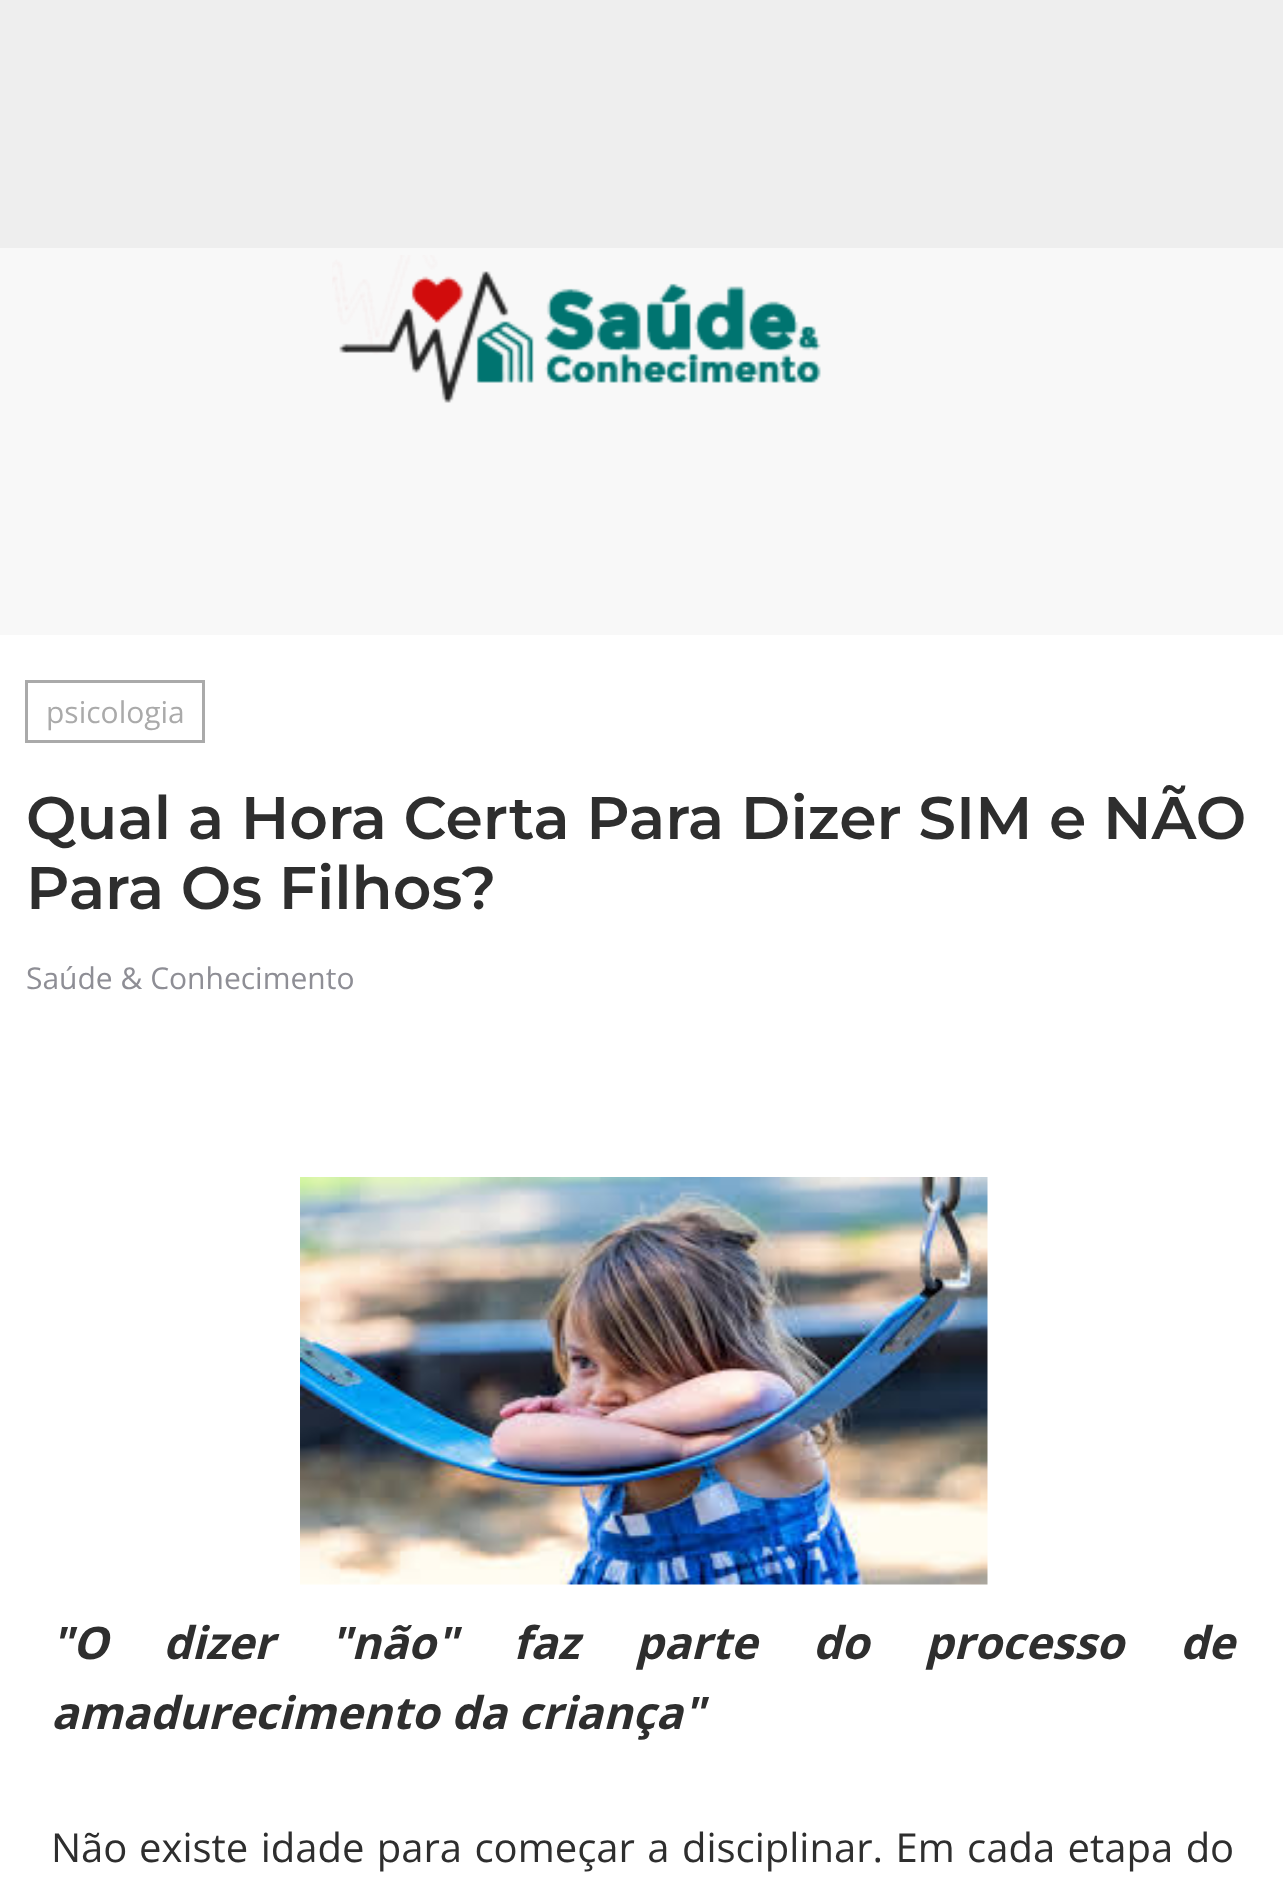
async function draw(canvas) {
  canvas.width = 1283
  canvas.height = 1898
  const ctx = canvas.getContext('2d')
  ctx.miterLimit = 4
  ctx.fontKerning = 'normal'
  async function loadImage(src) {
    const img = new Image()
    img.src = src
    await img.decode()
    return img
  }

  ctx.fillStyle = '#fff'
  ctx.fillRect(0, 0, 1283, 1898)
  ctx.fillStyle = '#eee'
  ctx.fillRect(0, 0, 1283, 248)
  ctx.fillStyle = '#f8f8f8'
  ctx.fillRect(0, 248, 1283, 387)
  ctx.drawImage(await loadImage('image0.png'), 332, 255, 489, 148)
  ctx.strokeStyle = '#aaa'
  ctx.lineWidth = 3
  ctx.strokeRect(26.5, 681.5, 177, 60)
  ctx.font = '30px Open Sans'
  ctx.fillStyle = '#aaa'
  ctx.fillText('psicologia', 46, 723)
  ctx.font = '600 60px Montserrat'
  ctx.fillStyle = '#2e2e2e'
  ctx.fillText('Qual a Hora Certa Para Dizer SIM e NÃO', 26, 839)
  ctx.fillText('Para Os Filhos?', 26, 909)
  ctx.font = '30px Open Sans'
  ctx.fillStyle = '#8e8e95'
  ctx.fillText('Saúde & Conhecimento', 26, 989)
  ctx.drawImage(await loadImage('image1.png'), 300, 1177, 688, 408)
  ctx.font = 'italic bold 45px Open Sans'
  ctx.fillStyle = '#2e2e2e'
  ctx.fillText('"O', 51, 1659)
  ctx.wordSpacing = '44px'
  ctx.fillText('dizer "não" faz parte do processo de', 163, 1659)
  ctx.wordSpacing = '0px'
  ctx.fillText('amadurecimento da criança"', 51, 1729)
  ctx.font = '40px Open Sans'
  ctx.fillText('Não', 51, 1862)
  ctx.wordSpacing = '2px'
  ctx.fillText('existe idade para começar a disciplinar. Em cada etapa do', 139, 1862)
}

draw(document.querySelector('canvas'))
